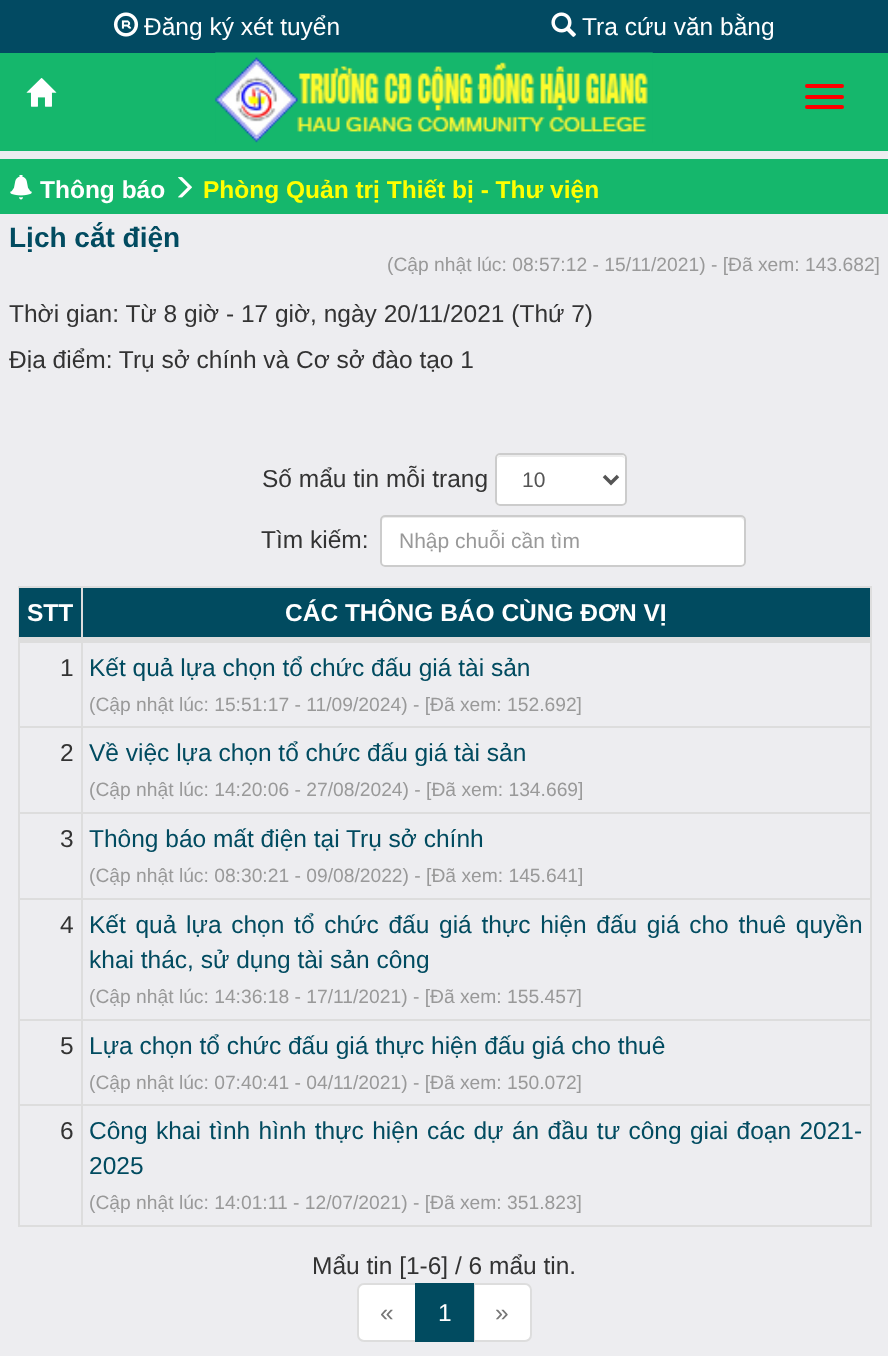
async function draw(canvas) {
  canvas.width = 888
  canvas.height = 1356
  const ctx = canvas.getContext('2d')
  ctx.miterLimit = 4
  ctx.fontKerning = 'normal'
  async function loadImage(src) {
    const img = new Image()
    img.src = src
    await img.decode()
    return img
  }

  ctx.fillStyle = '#ededf0'
  ctx.fillRect(0, 0, 888, 1356)
  ctx.fillStyle = '#024a62'
  ctx.fillRect(0, 0, 888, 53)
  ctx.drawImage(await loadImage('image0.png'), 113, 12, 26, 25)
  ctx.font = '24.5px Liberation Sans'
  ctx.fillStyle = '#fff'
  ctx.fillText('Đăng ký xét tuyển', 144, 35)
  ctx.drawImage(await loadImage('image1.png'), 551, 12, 25, 25)
  ctx.fillText('Tra cứu văn bằng', 582, 35)
  ctx.fillStyle = '#15b76c'
  ctx.fillRect(0, 53, 888, 98)
  ctx.drawImage(await loadImage('image2.png'), 26, 78, 31, 29)
  ctx.drawImage(await loadImage('image3.png'), 215, 52, 438, 91)
  ctx.fillStyle = '#f00'
  ctx.beginPath()
  ctx.roundRect(805, 84, 39, 4, 2)
  ctx.fill()
  ctx.beginPath()
  ctx.roundRect(805, 95, 39, 4, 2)
  ctx.fill()
  ctx.beginPath()
  ctx.roundRect(805, 105, 39, 4, 2)
  ctx.fill()
  ctx.fillStyle = '#15b76c'
  ctx.fillRect(0, 159, 888, 55)
  ctx.drawImage(await loadImage('image4.png'), 10, 175, 22, 25)
  ctx.font = 'bold 24.5px Liberation Sans'
  ctx.fillStyle = '#fff'
  ctx.fillText('Thông báo', 40, 198)
  ctx.drawImage(await loadImage('image5.png'), 178, 177, 14, 21)
  ctx.fillStyle = '#ff0'
  ctx.fillText('Phòng Quản trị Thiết bị - Thư viện', 203, 198)
  ctx.font = 'bold 28px Liberation Sans'
  ctx.fillStyle = '#014b60'
  ctx.fillText('Lịch cắt điện', 9, 247)
  ctx.font = '19.25px Liberation Sans'
  ctx.fillStyle = '#999'
  ctx.fillText('(Cập nhật lúc: 08:57:12 - 15/11/2021) - [Đã xem: 143.682]', 387, 271)
  ctx.font = '24.5px Liberation Sans'
  ctx.fillStyle = '#333'
  ctx.fillText('Thời gian: Từ 8 giờ - 17 giờ, ngày 20/11/2021 (Thứ 7)', 9, 322)
  ctx.fillText('Địa điểm: Trụ sở chính và Cơ sở đào tạo 1', 9, 368)
  ctx.fillText('Số mẩu tin mỗi trang', 262, 487)
  ctx.fillStyle = '#fff'
  ctx.beginPath()
  ctx.roundRect(495, 453, 132, 53, 5)
  ctx.fill()
  ctx.fillStyle = '#ececec'
  ctx.beginPath()
  ctx.moveTo(500, 457)
  ctx.lineTo(621, 457)
  ctx.bezierCurveTo(623, 457, 625, 458, 625, 460)
  ctx.bezierCurveTo(625, 450, 603, 455, 601, 455)
  ctx.lineTo(521, 455)
  ctx.bezierCurveTo(519, 455, 497, 450, 497, 460)
  ctx.bezierCurveTo(497, 458, 499, 457, 500, 457)
  ctx.closePath()
  ctx.fill()
  ctx.beginPath()
  ctx.roundRect(496, 454, 130, 51, 4)
  ctx.strokeStyle = '#ccc'
  ctx.lineWidth = 2
  ctx.stroke()
  ctx.beginPath()
  ctx.moveTo(604, 476)
  ctx.lineTo(611, 483)
  ctx.lineTo(618, 476)
  ctx.strokeStyle = '#555'
  ctx.lineWidth = 3.5
  ctx.stroke()
  ctx.font = '21px Liberation Sans'
  ctx.fillStyle = '#555'
  ctx.fillText('10', 522, 487)
  ctx.font = '24.5px Liberation Sans'
  ctx.fillStyle = '#333'
  ctx.fillText('Tìm kiếm:', 261, 548)
  ctx.fillStyle = '#fff'
  ctx.beginPath()
  ctx.roundRect(380, 515, 366, 52, 5)
  ctx.fill()
  ctx.fillStyle = '#ececec'
  ctx.beginPath()
  ctx.moveTo(385, 518)
  ctx.lineTo(740, 518)
  ctx.bezierCurveTo(742, 518, 744, 520, 744, 522)
  ctx.lineTo(744, 520)
  ctx.bezierCurveTo(744, 518, 742, 516, 740, 516)
  ctx.lineTo(386, 516)
  ctx.bezierCurveTo(384, 516, 382, 518, 382, 520)
  ctx.lineTo(382, 522)
  ctx.bezierCurveTo(382, 520, 383, 518, 385, 518)
  ctx.closePath()
  ctx.fill()
  ctx.beginPath()
  ctx.roundRect(381, 516, 364, 50, 4)
  ctx.strokeStyle = '#ccc'
  ctx.lineWidth = 2
  ctx.stroke()
  ctx.font = '21px Liberation Sans'
  ctx.fillStyle = '#999'
  ctx.fillText('Nhập chuỗi cần tìm', 399, 548)
  ctx.strokeStyle = '#ddd'
  ctx.strokeRect(19, 587, 852, 639)
  ctx.fillStyle = '#014b60'
  ctx.fillRect(19, 588, 851, 49)
  ctx.fillStyle = '#ddd'
  ctx.fillRect(81, 588, 2, 53)
  ctx.fillRect(19, 637, 851, 4)
  ctx.font = 'bold 24.5px Liberation Sans'
  ctx.fillStyle = '#fff'
  ctx.fillText('STT', 27, 621)
  ctx.fillText('CÁC THÔNG BÁO CÙNG ĐƠN VỊ', 285, 621)
  ctx.fillStyle = '#ddd'
  ctx.fillRect(19, 641, 63, 2)
  ctx.fillRect(81, 641, 2, 85)
  ctx.font = '24.5px Liberation Sans'
  ctx.fillStyle = '#333'
  ctx.fillText('1', 60, 676)
  ctx.fillStyle = '#ddd'
  ctx.fillRect(82, 641, 788, 2)
  ctx.fillStyle = '#014b60'
  ctx.fillText('Kết quả lựa chọn tổ chức đấu giá tài sản', 89, 676)
  ctx.font = '19.25px Liberation Sans'
  ctx.fillStyle = '#999'
  ctx.fillText('(Cập nhật lúc: 15:51:17 - 11/09/2024) - [Đã xem: 152.692]', 89, 711)
  ctx.fillStyle = '#ddd'
  ctx.fillRect(19, 726, 63, 2)
  ctx.fillRect(81, 726, 2, 86)
  ctx.font = '24.5px Liberation Sans'
  ctx.fillStyle = '#333'
  ctx.fillText('2', 60, 761)
  ctx.fillStyle = '#ddd'
  ctx.fillRect(82, 726, 788, 2)
  ctx.fillStyle = '#014b60'
  ctx.fillText('Về việc lựa chọn tổ chức đấu giá tài sản', 89, 761)
  ctx.font = '19.25px Liberation Sans'
  ctx.fillStyle = '#999'
  ctx.fillText('(Cập nhật lúc: 14:20:06 - 27/08/2024) - [Đã xem: 134.669]', 89, 796)
  ctx.fillStyle = '#ddd'
  ctx.fillRect(19, 812, 63, 2)
  ctx.fillRect(81, 812, 2, 86)
  ctx.font = '24.5px Liberation Sans'
  ctx.fillStyle = '#333'
  ctx.fillText('3', 60, 847)
  ctx.fillStyle = '#ddd'
  ctx.fillRect(82, 812, 788, 2)
  ctx.fillStyle = '#014b60'
  ctx.fillText('Thông báo mất điện tại Trụ sở chính', 89, 847)
  ctx.font = '19.25px Liberation Sans'
  ctx.fillStyle = '#999'
  ctx.fillText('(Cập nhật lúc: 08:30:21 - 09/08/2022) - [Đã xem: 145.641]', 89, 882)
  ctx.fillStyle = '#ddd'
  ctx.fillRect(19, 898, 63, 2)
  ctx.fillRect(81, 898, 2, 121)
  ctx.font = '24.5px Liberation Sans'
  ctx.fillStyle = '#333'
  ctx.fillText('4', 60, 933)
  ctx.fillStyle = '#ddd'
  ctx.fillRect(82, 898, 788, 2)
  ctx.wordSpacing = '2.9px'
  ctx.fillStyle = '#014b60'
  ctx.fillText('Kết quả lựa chọn tổ chức đấu giá thực hiện đấu giá cho thuê quyền', 89, 933)
  ctx.wordSpacing = '0px'
  ctx.fillText('khai thác, sử dụng tài sản công', 89, 968)
  ctx.font = '19.25px Liberation Sans'
  ctx.fillStyle = '#999'
  ctx.fillText('(Cập nhật lúc: 14:36:18 - 17/11/2021) - [Đã xem: 155.457]', 89, 1003)
  ctx.fillStyle = '#ddd'
  ctx.fillRect(19, 1019, 63, 2)
  ctx.fillRect(81, 1019, 2, 85)
  ctx.font = '24.5px Liberation Sans'
  ctx.fillStyle = '#333'
  ctx.fillText('5', 60, 1054)
  ctx.fillStyle = '#ddd'
  ctx.fillRect(82, 1019, 788, 2)
  ctx.fillStyle = '#014b60'
  ctx.fillText('Lựa chọn tổ chức đấu giá thực hiện đấu giá cho thuê', 89, 1054)
  ctx.font = '19.25px Liberation Sans'
  ctx.fillStyle = '#999'
  ctx.fillText('(Cập nhật lúc: 07:40:41 - 04/11/2021) - [Đã xem: 150.072]', 89, 1089)
  ctx.fillStyle = '#ddd'
  ctx.fillRect(19, 1104, 63, 2)
  ctx.fillRect(81, 1104, 2, 121)
  ctx.font = '24.5px Liberation Sans'
  ctx.fillStyle = '#333'
  ctx.fillText('6', 60, 1139)
  ctx.fillStyle = '#ddd'
  ctx.fillRect(82, 1104, 788, 2)
  ctx.wordSpacing = '1.6px'
  ctx.fillStyle = '#014b60'
  ctx.fillText('Công khai tình hình thực hiện các dự án đầu tư công giai đoạn 2021-', 89, 1139)
  ctx.wordSpacing = '0px'
  ctx.fillText('2025', 89, 1174)
  ctx.font = '19.25px Liberation Sans'
  ctx.fillStyle = '#999'
  ctx.fillText('(Cập nhật lúc: 14:01:11 - 12/07/2021) - [Đã xem: 351.823]', 89, 1209)
  ctx.font = '24.5px Liberation Sans'
  ctx.fillStyle = '#333'
  ctx.fillText('Mẩu tin [1-6] / 6 mẩu tin.', 312, 1274)
  ctx.fillStyle = '#fff'
  ctx.beginPath()
  ctx.roundRect(358, 1284, 58, 57, [6, 0, 0, 6])
  ctx.fill()
  ctx.stroke()
  ctx.fillStyle = '#777'
  ctx.fillText('«', 380, 1321)
  ctx.fillStyle = '#fff'
  ctx.beginPath()
  ctx.roundRect(474, 1284, 57, 57, [0, 6, 6, 0])
  ctx.fill()
  ctx.stroke()
  ctx.fillStyle = '#014b60'
  ctx.fillRect(415, 1283, 59, 59)
  ctx.fillStyle = '#fff'
  ctx.fillText('1', 438, 1321)
  ctx.fillStyle = '#777'
  ctx.fillText('»', 495, 1321)
}

draw(document.querySelector('canvas'))
